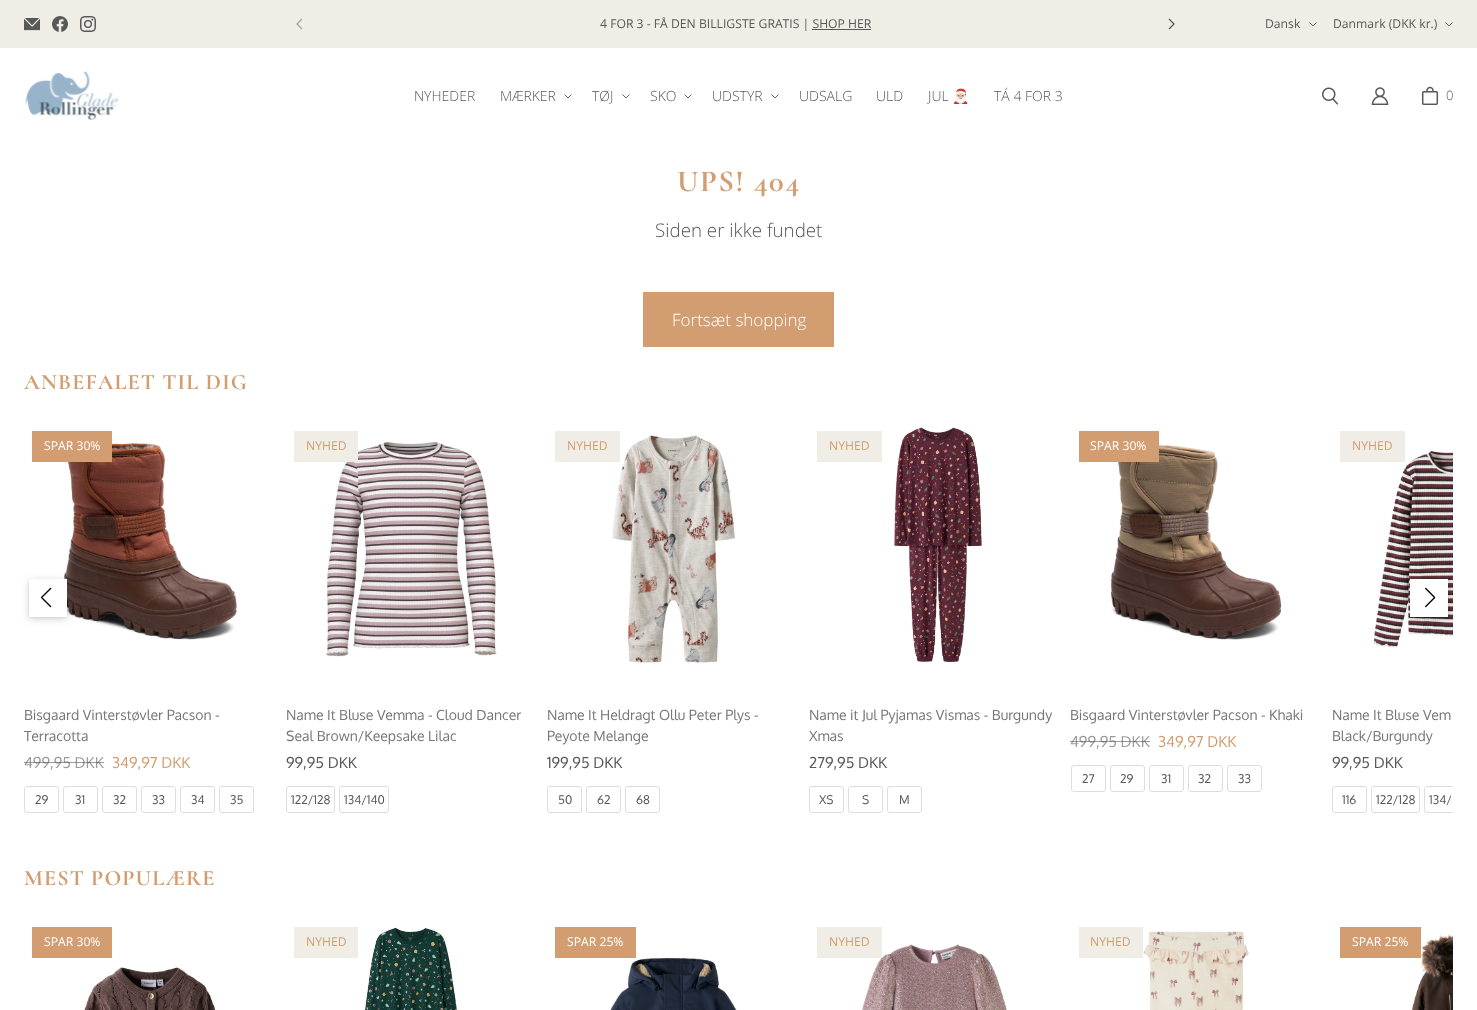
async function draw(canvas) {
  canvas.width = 1477
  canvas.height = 1010
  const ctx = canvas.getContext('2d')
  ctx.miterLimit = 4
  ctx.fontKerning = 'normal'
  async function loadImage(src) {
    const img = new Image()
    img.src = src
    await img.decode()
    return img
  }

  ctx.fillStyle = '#fff'
  ctx.fillRect(0, 0, 1477, 1010)
  ctx.fillStyle = '#efede5'
  ctx.fillRect(0, 0, 1477, 48)
  ctx.drawImage(await loadImage('image0.png'), 24, 18, 16, 13)
  ctx.drawImage(await loadImage('image1.png'), 52, 16, 16, 16)
  ctx.drawImage(await loadImage('image2.png'), 80, 16, 16, 16)
  ctx.font = '12.2px Open Sans'
  ctx.fillStyle = '#585858'
  ctx.fillText('4 FOR 3 - FÅ DEN BILLIGSTE GRATIS | SHOP HER', 600, 28)
  ctx.fillRect(812, 29, 59, 1)
  ctx.beginPath()
  ctx.moveTo(302, 19)
  ctx.lineTo(297, 24)
  ctx.lineTo(302, 29)
  ctx.strokeStyle = '#a4a39f'
  ctx.lineWidth = 1.3
  ctx.stroke()
  ctx.beginPath()
  ctx.moveTo(1169, 29)
  ctx.lineTo(1174, 24)
  ctx.lineTo(1169, 19)
  ctx.strokeStyle = '#585858'
  ctx.stroke()
  ctx.fillText('Dansk', 1265, 28)
  ctx.beginPath()
  ctx.moveTo(1309.5, 22.5)
  ctx.lineTo(1313, 26)
  ctx.lineTo(1316.5, 22.5)
  ctx.lineWidth = 0.9
  ctx.stroke()
  ctx.fillText('Danmark (DKK kr.)', 1333, 28)
  ctx.beginPath()
  ctx.moveTo(1445.5, 22.5)
  ctx.lineTo(1449, 26)
  ctx.lineTo(1452.5, 22.5)
  ctx.stroke()
  ctx.drawImage(await loadImage('image3.png'), 25, 71, 94, 49)
  ctx.font = '300 14px Open Sans'
  ctx.fillText('NYHEDER', 414, 101)
  ctx.fillText('MÆRKER', 500, 101)
  ctx.beginPath()
  ctx.moveTo(564.5, 94.5)
  ctx.lineTo(568, 98)
  ctx.lineTo(571.5, 94.5)
  ctx.stroke()
  ctx.fillText('TØJ', 592, 101)
  ctx.beginPath()
  ctx.moveTo(622.5, 94.5)
  ctx.lineTo(626, 98)
  ctx.lineTo(629.5, 94.5)
  ctx.stroke()
  ctx.fillText('SKO', 650, 101)
  ctx.beginPath()
  ctx.moveTo(684.5, 94.5)
  ctx.lineTo(688, 98)
  ctx.lineTo(691.5, 94.5)
  ctx.stroke()
  ctx.fillText('UDSTYR', 712, 101)
  ctx.beginPath()
  ctx.moveTo(771.5, 94.5)
  ctx.lineTo(775, 98)
  ctx.lineTo(778.5, 94.5)
  ctx.stroke()
  ctx.fillText('UDSALG', 799, 101)
  ctx.fillText('ULD', 876, 101)
  ctx.fillText('JUL', 928, 101)
  ctx.font = '14px Noto Color Emoji'
  ctx.fillText('🎅🏼', 952, 101)
  ctx.font = '300 14px Open Sans'
  ctx.fillText('TÁ 4 FOR 3', 994, 101)
  ctx.drawImage(await loadImage('image4.png'), 1322, 87, 17, 18)
  ctx.drawImage(await loadImage('image5.png'), 1371, 87, 18, 18)
  ctx.drawImage(await loadImage('image6.png'), 1421, 86, 18, 19)
  ctx.font = '300 13px Open Sans'
  ctx.fillText('0', 1446, 100)
  ctx.letterSpacing = '1.5px'
  ctx.font = 'bold 30.5px Cormorant'
  ctx.fillStyle = '#d29e71'
  ctx.fillText('UPS! 404', 677, 191)
  ctx.letterSpacing = '0px'
  ctx.font = '300 18.75px Open Sans'
  ctx.fillStyle = '#585858'
  ctx.fillText('Siden er ikke fundet', 655, 237)
  ctx.fillStyle = '#d29e71'
  ctx.fillRect(643, 292, 191, 55)
  ctx.font = '300 17px Open Sans'
  ctx.fillStyle = '#fff'
  ctx.fillText('Fortsæt shopping', 672, 326)
  ctx.letterSpacing = '1.1px'
  ctx.font = 'bold 22px Cormorant'
  ctx.fillStyle = '#d29e71'
  ctx.fillText('ANBEFALET TIL DIG', 24, 389)
  ctx.drawImage(await loadImage('image7.png'), 62, 439, 175, 201)
  ctx.fillRect(32, 431, 80, 31)
  ctx.letterSpacing = '0px'
  ctx.font = '12.2px Open Sans'
  ctx.fillStyle = '#fff'
  ctx.fillText('SPAR 30%', 44, 450)
  ctx.font = '14px Oxygen'
  ctx.fillStyle = '#767676'
  ctx.fillText('Bisgaard Vinterstøvler Pacson -', 24, 720)
  ctx.fillText('Terracotta', 24, 741)
  ctx.font = '15px Oxygen'
  ctx.fillStyle = '#9b9b9b'
  ctx.fillText('499,95 DKK', 24, 768)
  ctx.fillStyle = '#58585899'
  ctx.fillRect(24, 762, 80, 1)
  ctx.fillStyle = '#d29e71'
  ctx.fillText('349,97 DKK', 112, 768)
  ctx.beginPath()
  ctx.roundRect(24.5, 786.5, 34, 26, 2.5)
  ctx.strokeStyle = '#ddd'
  ctx.lineWidth = 1
  ctx.stroke()
  ctx.font = '12px Oxygen'
  ctx.fillStyle = '#585858'
  ctx.fillText('29', 35, 804)
  ctx.beginPath()
  ctx.roundRect(63.5, 786.5, 34, 26, 2.5)
  ctx.stroke()
  ctx.fillText('31', 75, 804)
  ctx.beginPath()
  ctx.roundRect(102.5, 786.5, 34, 26, 2.5)
  ctx.stroke()
  ctx.fillText('32', 113, 804)
  ctx.beginPath()
  ctx.roundRect(141.5, 786.5, 34, 26, 2.5)
  ctx.stroke()
  ctx.fillText('33', 152, 804)
  ctx.beginPath()
  ctx.roundRect(180.5, 786.5, 34, 26, 2.5)
  ctx.stroke()
  ctx.fillText('34', 191, 804)
  ctx.beginPath()
  ctx.roundRect(219.5, 786.5, 34, 26, 2.5)
  ctx.stroke()
  ctx.fillText('35', 230, 804)
  ctx.drawImage(await loadImage('image8.png'), 326, 441, 171, 216)
  ctx.fillStyle = '#efede5'
  ctx.fillRect(294, 431, 64, 31)
  ctx.font = '12.2px Open Sans'
  ctx.fillStyle = '#d29e71'
  ctx.fillText('NYHED', 306, 450)
  ctx.font = '14px Oxygen'
  ctx.fillStyle = '#767676'
  ctx.fillText('Name It Bluse Vemma - Cloud Dancer', 286, 720)
  ctx.fillText('Seal Brown/Keepsake Lilac', 286, 741)
  ctx.font = '15px Oxygen'
  ctx.fillStyle = '#585858'
  ctx.fillText('99,95 DKK', 286, 768)
  ctx.beginPath()
  ctx.roundRect(286.5, 786.5, 48, 26, 2.5)
  ctx.stroke()
  ctx.font = '12px Oxygen'
  ctx.fillText('122/128', 291, 804)
  ctx.beginPath()
  ctx.roundRect(339.5, 786.5, 49, 26, 2.5)
  ctx.stroke()
  ctx.fillText('134/140', 344, 804)
  ctx.drawImage(await loadImage('image9.png'), 611, 435, 124, 228)
  ctx.fillStyle = '#efede5'
  ctx.fillRect(555, 431, 65, 31)
  ctx.font = '12.2px Open Sans'
  ctx.fillStyle = '#d29e71'
  ctx.fillText('NYHED', 567, 450)
  ctx.font = '14px Oxygen'
  ctx.fillStyle = '#767676'
  ctx.fillText('Name It Heldragt Ollu Peter Plys -', 547, 720)
  ctx.fillText('Peyote Melange', 547, 741)
  ctx.font = '15px Oxygen'
  ctx.fillStyle = '#585858'
  ctx.fillText('199,95 DKK', 547, 768)
  ctx.beginPath()
  ctx.roundRect(547.5, 786.5, 34, 26, 2.5)
  ctx.stroke()
  ctx.font = '12px Oxygen'
  ctx.fillText('50', 558, 804)
  ctx.beginPath()
  ctx.roundRect(586.5, 786.5, 34, 26, 2.5)
  ctx.stroke()
  ctx.fillText('62', 597, 804)
  ctx.beginPath()
  ctx.roundRect(625.5, 786.5, 34, 26, 2.5)
  ctx.stroke()
  ctx.fillText('68', 636, 804)
  ctx.fillStyle = '#efede5'
  ctx.fillRect(817, 431, 65, 31)
  ctx.font = '12.2px Open Sans'
  ctx.fillStyle = '#d29e71'
  ctx.fillText('NYHED', 829, 450)
  ctx.drawImage(await loadImage('image10.png'), 894, 427, 88, 235)
  ctx.font = '14px Oxygen'
  ctx.fillStyle = '#767676'
  ctx.fillText('Name it Jul Pyjamas Vismas - Burgundy', 809, 720)
  ctx.fillText('Xmas', 809, 741)
  ctx.font = '15px Oxygen'
  ctx.fillStyle = '#585858'
  ctx.fillText('279,95 DKK', 809, 768)
  ctx.beginPath()
  ctx.roundRect(809.5, 786.5, 34, 26, 2.5)
  ctx.stroke()
  ctx.font = '12px Oxygen'
  ctx.fillText('XS', 819, 804)
  ctx.beginPath()
  ctx.roundRect(848.5, 786.5, 34, 26, 2.5)
  ctx.stroke()
  ctx.fillText('S', 862, 804)
  ctx.beginPath()
  ctx.roundRect(887.5, 786.5, 34, 26, 2.5)
  ctx.stroke()
  ctx.fillText('M', 899, 804)
  ctx.drawImage(await loadImage('image11.png'), 1111, 439, 171, 201)
  ctx.fillStyle = '#d29e71'
  ctx.fillRect(1079, 431, 80, 31)
  ctx.font = '12.2px Open Sans'
  ctx.fillStyle = '#fff'
  ctx.fillText('SPAR 30%', 1090, 450)
  ctx.font = '14px Oxygen'
  ctx.fillStyle = '#767676'
  ctx.fillText('Bisgaard Vinterstøvler Pacson - Khaki', 1070, 720)
  ctx.font = '15px Oxygen'
  ctx.fillStyle = '#9b9b9b'
  ctx.fillText('499,95 DKK', 1070, 747)
  ctx.fillStyle = '#58585899'
  ctx.fillRect(1070, 741, 80, 1)
  ctx.fillStyle = '#d29e71'
  ctx.fillText('349,97 DKK', 1158, 747)
  ctx.beginPath()
  ctx.roundRect(1071.5, 765.5, 34, 26, 2.5)
  ctx.stroke()
  ctx.font = '12px Oxygen'
  ctx.fillStyle = '#585858'
  ctx.fillText('27', 1082, 783)
  ctx.beginPath()
  ctx.roundRect(1110.5, 765.5, 34, 26, 2.5)
  ctx.stroke()
  ctx.fillText('29', 1120, 783)
  ctx.beginPath()
  ctx.roundRect(1149.5, 765.5, 34, 26, 2.5)
  ctx.stroke()
  ctx.fillText('31', 1161, 783)
  ctx.beginPath()
  ctx.roundRect(1188.5, 765.5, 34, 26, 2.5)
  ctx.stroke()
  ctx.fillText('32', 1198, 783)
  ctx.beginPath()
  ctx.roundRect(1227.5, 765.5, 34, 26, 2.5)
  ctx.stroke()
  ctx.fillText('33', 1238, 783)
  ctx.drawImage(await loadImage('image12.png'), 1373, 451, 80, 197)
  ctx.fillStyle = '#efede5'
  ctx.fillRect(1340, 431, 65, 31)
  ctx.font = '12.2px Open Sans'
  ctx.fillStyle = '#d29e71'
  ctx.fillText('NYHED', 1352, 450)
  ctx.font = '14px Oxygen'
  ctx.fillStyle = '#767676'
  ctx.fillText('Name It Bluse Vem', 1332, 720)
  ctx.fillText('Black/Burgundy', 1332, 741)
  ctx.font = '15px Oxygen'
  ctx.fillStyle = '#585858'
  ctx.fillText('99,95 DKK', 1332, 768)
  ctx.beginPath()
  ctx.roundRect(1332.5, 786.5, 34, 26, 2.5)
  ctx.stroke()
  ctx.font = '12px Oxygen'
  ctx.fillText('116', 1342, 804)
  ctx.beginPath()
  ctx.roundRect(1371.5, 786.5, 48, 26, 2.5)
  ctx.stroke()
  ctx.fillText('122/128', 1376, 804)
  ctx.save()
  ctx.beginPath()
  ctx.rect(24, 423, 1429, 400)
  ctx.clip()
  ctx.beginPath()
  ctx.roundRect(1424.5, 786.5, 50, 26, 2.5)
  ctx.stroke()
  ctx.restore()
  ctx.fillText('134/', 1429, 804)
  ctx.fillStyle = '#00000014'
  ctx.filter = 'blur(1px)'
  ctx.beginPath()
  ctx.rect(29, 580, 38, 38)
  ctx.fill()
  ctx.filter = 'none'
  ctx.fillStyle = '#00000029'
  ctx.filter = 'blur(4px)'
  ctx.beginPath()
  ctx.rect(29, 581, 38, 38)
  ctx.fill()
  ctx.filter = 'none'
  ctx.fillStyle = '#fff'
  ctx.fillRect(29, 579, 38, 38)
  ctx.drawImage(await loadImage('image13.png'), 41, 587, 11, 21)
  ctx.fillStyle = '#00000014'
  ctx.filter = 'blur(1px)'
  ctx.beginPath()
  ctx.rect(1410, 580, 38, 38)
  ctx.fill()
  ctx.filter = 'none'
  ctx.fillStyle = '#00000029'
  ctx.filter = 'blur(4px)'
  ctx.beginPath()
  ctx.rect(1410, 581, 38, 38)
  ctx.fill()
  ctx.filter = 'none'
  ctx.fillStyle = '#fff'
  ctx.fillRect(1410, 579, 38, 38)
  ctx.drawImage(await loadImage('image14.png'), 1425, 587, 11, 21)
  ctx.letterSpacing = '1.1px'
  ctx.font = 'bold 22px Cormorant'
  ctx.fillStyle = '#d29e71'
  ctx.fillText('MEST POPULÆRE', 24, 885)
  ctx.fillRect(32, 927, 80, 31)
  ctx.letterSpacing = '0px'
  ctx.font = '12.2px Open Sans'
  ctx.fillStyle = '#fff'
  ctx.fillText('SPAR 30%', 44, 946)
  ctx.drawImage(await loadImage('image15.png'), 84, 967, 132, 43)
  ctx.fillStyle = '#efede5'
  ctx.fillRect(294, 927, 64, 31)
  ctx.fillStyle = '#d29e71'
  ctx.fillText('NYHED', 306, 946)
  ctx.drawImage(await loadImage('image16.png'), 365, 927, 92, 83)
  ctx.fillRect(555, 927, 81, 31)
  ctx.fillStyle = '#fff'
  ctx.fillText('SPAR 25%', 567, 946)
  ctx.drawImage(await loadImage('image17.png'), 610, 958, 127, 52)
  ctx.drawImage(await loadImage('image18.png'), 862, 944, 145, 66)
  ctx.fillStyle = '#efede5'
  ctx.fillRect(817, 927, 65, 31)
  ctx.fillStyle = '#d29e71'
  ctx.fillText('NYHED', 829, 946)
  ctx.fillStyle = '#efede5'
  ctx.fillRect(1079, 927, 64, 31)
  ctx.fillStyle = '#d29e71'
  ctx.fillText('NYHED', 1090, 946)
  ctx.drawImage(await loadImage('image19.png'), 1143, 931, 106, 79)
  ctx.drawImage(await loadImage('image20.png'), 1412, 934, 41, 76)
  ctx.fillRect(1340, 927, 81, 31)
  ctx.fillStyle = '#fff'
  ctx.fillText('SPAR 25%', 1352, 946)
}

draw(document.querySelector('canvas'))
